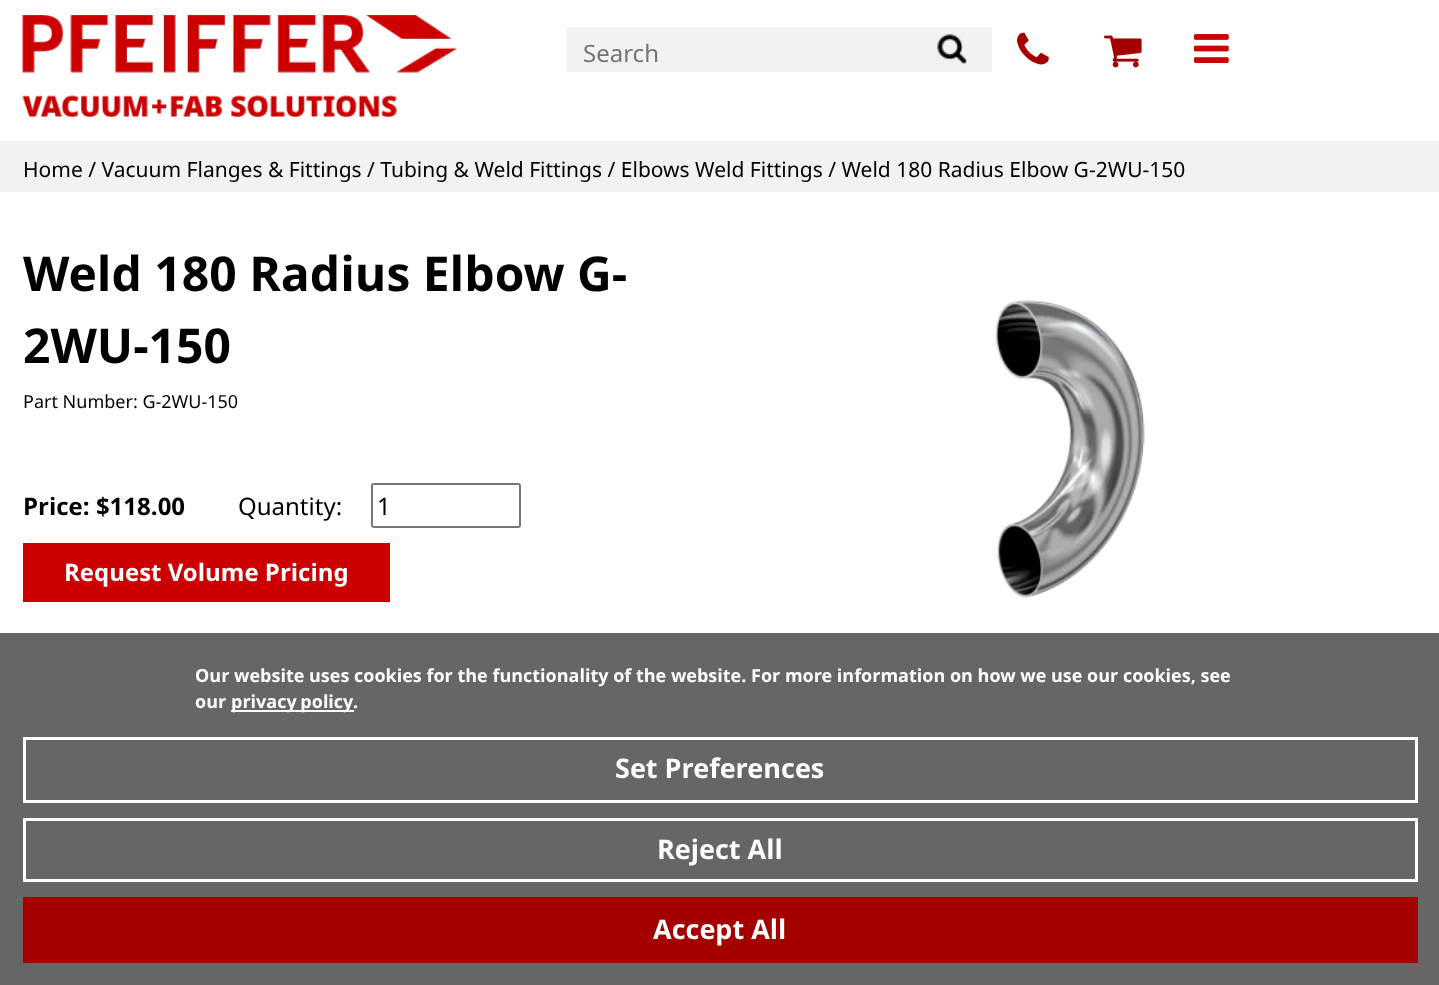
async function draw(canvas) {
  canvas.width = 1439
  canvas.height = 985
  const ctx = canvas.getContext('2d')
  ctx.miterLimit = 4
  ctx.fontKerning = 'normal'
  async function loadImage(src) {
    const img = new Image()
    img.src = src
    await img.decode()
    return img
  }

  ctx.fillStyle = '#fff'
  ctx.fillRect(0, 0, 1439, 985)
  ctx.drawImage(await loadImage('image0.png'), 22, 15, 436, 102)
  ctx.fillStyle = '#f2f2f2'
  ctx.fillRect(567, 27, 425, 45)
  ctx.font = '24px Noto Sans'
  ctx.fillStyle = '#757575'
  ctx.fillText('Search', 583, 62)
  ctx.drawImage(await loadImage('image1.png'), 937, 34, 30, 31)
  ctx.drawImage(await loadImage('image2.png'), 1017, 32, 32, 33)
  ctx.drawImage(await loadImage('image3.png'), 1104, 35, 38, 33)
  ctx.drawImage(await loadImage('image4.png'), 1194, 34, 35, 29)
  ctx.fillStyle = '#f2f2f2'
  ctx.fillRect(0, 141, 1439, 51)
  ctx.font = '21px Noto Sans'
  ctx.fillStyle = '#000'
  ctx.fillText('Home / Vacuum Flanges & Fittings / Tubing & Weld Fittings / Elbows Weld Fittings / Weld 180 Radius Elbow G-2WU-150', 23, 177)
  ctx.font = 'bold 48px Noto Sans'
  ctx.fillText('Weld 180 Radius Elbow G-', 23, 291)
  ctx.fillText('2WU-150', 23, 363)
  ctx.font = '18px Noto Sans'
  ctx.fillText('Part Number: G-2WU-150', 23, 408)
  ctx.drawImage(await loadImage('image5.png'), 995, 300, 150, 298)
  ctx.font = 'bold 24px Noto Sans'
  ctx.fillText('Price: $118.00', 23, 515)
  ctx.font = '24px Noto Sans'
  ctx.fillText('Quantity:', 238, 515)
  ctx.beginPath()
  ctx.roundRect(372, 484, 148, 43, 2)
  ctx.strokeStyle = '#767676'
  ctx.lineWidth = 2
  ctx.stroke()
  ctx.fillText('1', 377, 515)
  ctx.fillStyle = '#c00'
  ctx.fillRect(23, 543, 367, 59)
  ctx.font = 'bold 24px Noto Sans'
  ctx.fillStyle = '#fff'
  ctx.fillText('Request Volume Pricing', 64, 581)
  ctx.fillStyle = '#666'
  ctx.fillRect(0, 633, 1439, 352)
  ctx.font = 'bold 18px Noto Sans'
  ctx.fillStyle = '#fff'
  ctx.fillText('Our website uses cookies for the functionality of the website. For more information on how we use our cookies, see', 195, 682)
  ctx.fillText('our', 195, 708)
  ctx.fillRect(231, 710, 123, 2)
  ctx.wordSpacing = '-1px'
  ctx.fillText('privacy policy', 231, 708)
  ctx.wordSpacing = '0px'
  ctx.fillText('.', 353, 708)
  ctx.strokeStyle = '#fff'
  ctx.lineWidth = 3
  ctx.strokeRect(24.5, 738.5, 1392, 63)
  ctx.font = 'bold 27px Noto Sans'
  ctx.fillText('Set Preferences', 615, 778)
  ctx.strokeRect(24.5, 819.5, 1392, 61)
  ctx.fillText('Reject All', 657, 859)
  ctx.fillStyle = '#a50000'
  ctx.fillRect(23, 897, 1395, 66)
  ctx.fillStyle = '#fff'
  ctx.fillText('Accept All', 653, 939)
}

draw(document.querySelector('canvas'))
